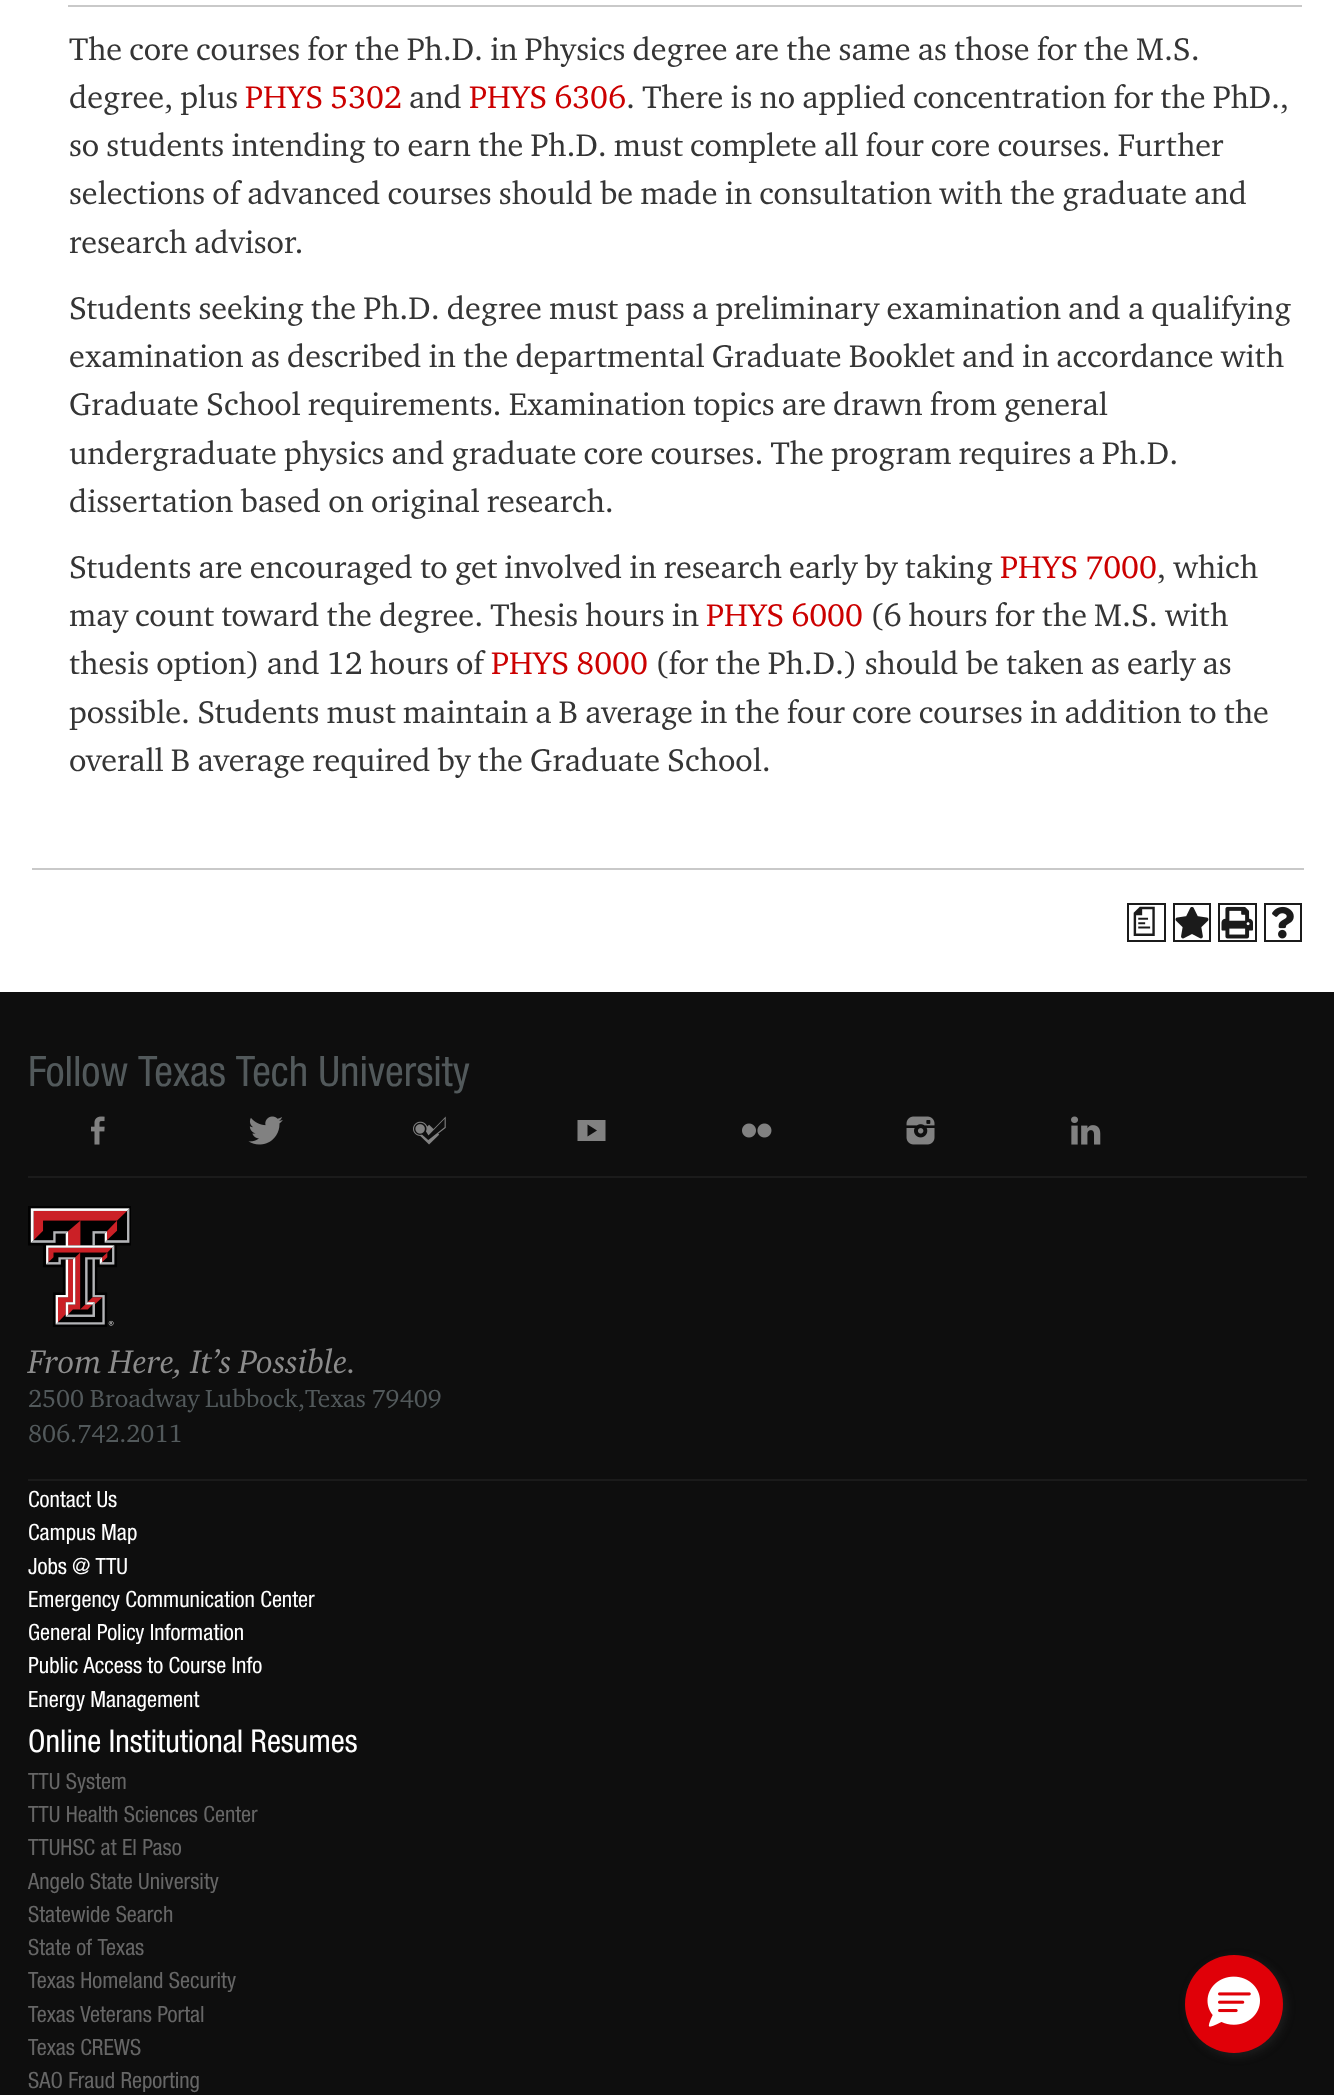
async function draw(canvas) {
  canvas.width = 1334
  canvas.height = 2095
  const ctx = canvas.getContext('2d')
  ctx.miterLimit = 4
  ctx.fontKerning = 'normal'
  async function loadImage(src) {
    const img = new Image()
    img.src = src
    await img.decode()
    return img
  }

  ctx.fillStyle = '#fff'
  ctx.fillRect(0, 0, 1334, 2095)
  ctx.fillStyle = '#c9c9c9'
  ctx.fillRect(68, 5, 1234, 2)
  ctx.font = '32.2px "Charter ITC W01"'
  ctx.fillStyle = '#353535'
  ctx.fillText('The core courses for the Ph.D. in Physics degree are the same as those for the M.S.', 69, 60)
  ctx.fillText('degree, plus', 69, 108)
  ctx.fillStyle = '#c00'
  ctx.fillText('PHYS 5302', 245, 108)
  ctx.fillStyle = '#353535'
  ctx.fillText('and', 409, 108)
  ctx.fillStyle = '#c00'
  ctx.fillText('PHYS 6306', 469, 108)
  ctx.fillStyle = '#353535'
  ctx.fillText('. There is no applied concentration for the PhD.,', 626, 108)
  ctx.fillText('so students intending to earn the Ph.D. must complete all four core courses. Further', 69, 156)
  ctx.fillText('selections of advanced courses should be made in consultation with the graduate and', 69, 204)
  ctx.fillText('research advisor.', 69, 253)
  ctx.fillText('Students seeking the Ph.D. degree must pass a preliminary examination and a qualifying', 69, 319)
  ctx.fillText('examination as described in the departmental Graduate Booklet and in accordance with', 69, 367)
  ctx.fillText('Graduate School requirements. Examination topics are drawn from general', 69, 415)
  ctx.fillText('undergraduate physics and graduate core courses. The program requires a Ph.D.', 69, 464)
  ctx.fillText('dissertation based on original research.', 69, 512)
  ctx.fillText('Students are encouraged to get involved in research early by taking', 69, 578)
  ctx.fillStyle = '#c00'
  ctx.fillText('PHYS 7000', 1000, 578)
  ctx.fillStyle = '#353535'
  ctx.fillText(', which', 1157, 578)
  ctx.fillText('may count toward the degree. Thesis hours in', 69, 626)
  ctx.fillStyle = '#c00'
  ctx.fillText('PHYS 6000', 706, 626)
  ctx.fillStyle = '#353535'
  ctx.fillText('(6 hours for the M.S. with', 870, 626)
  ctx.fillText('thesis option) and 12 hours of', 69, 674)
  ctx.fillStyle = '#c00'
  ctx.fillText('PHYS 8000', 491, 674)
  ctx.fillStyle = '#353535'
  ctx.fillText('(for the Ph.D.) should be taken as early as', 655, 674)
  ctx.fillText('possible. Students must maintain a B average in the four core courses in addition to the', 69, 723)
  ctx.fillText('overall B average required by the Graduate School.', 69, 771)
  ctx.fillStyle = '#c9c9c9'
  ctx.fillRect(32, 868, 1272, 2)
  ctx.strokeStyle = '#1b1b1b'
  ctx.lineWidth = 2
  ctx.strokeRect(1128, 904, 37, 37)
  ctx.font = '500 32px "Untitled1"'
  ctx.fillStyle = '#1b1b1b'
  ctx.fillText('a', 1128, 931)
  ctx.strokeRect(1174, 904, 36, 37)
  ctx.drawImage(await loadImage('image0.png'), 1175, 907, 34, 32)
  ctx.strokeRect(1219, 904, 37, 37)
  ctx.drawImage(await loadImage('image1.png'), 1221, 906, 32, 33)
  ctx.strokeRect(1265, 904, 36, 37)
  ctx.drawImage(await loadImage('image2.png'), 1272, 906, 22, 33)
  ctx.fillStyle = '#0e0e0e'
  ctx.fillRect(0, 992, 1334, 1103)
  ctx.fillStyle = '#1b1b1b'
  ctx.fillRect(28, 1176, 1279, 2)
  ctx.font = '42px "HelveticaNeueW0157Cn"'
  ctx.fillStyle = '#52595b'
  ctx.fillText('Follow Texas Tech University', 28, 1086)
  ctx.drawImage(await loadImage('image3.png'), 91, 1116, 14, 29)
  ctx.drawImage(await loadImage('image4.png'), 248, 1116, 35, 29)
  ctx.drawImage(await loadImage('image5.png'), 413, 1116, 33, 29)
  ctx.fillStyle = '#818181'
  ctx.beginPath()
  ctx.moveTo(577.5, 1141)
  ctx.lineTo(577.5, 1120)
  ctx.lineTo(605.5, 1120)
  ctx.lineTo(605.5, 1141)
  ctx.closePath()
  ctx.moveTo(587.5, 1136.5)
  ctx.lineTo(597, 1130.5)
  ctx.lineTo(587.5, 1124.5)
  ctx.closePath()
  ctx.fill()
  ctx.drawImage(await loadImage('image6.png'), 742, 1123, 30, 15)
  ctx.drawImage(await loadImage('image7.png'), 906, 1116, 29, 29)
  ctx.drawImage(await loadImage('image8.png'), 1071, 1116, 30, 29)
  ctx.drawImage(await loadImage('image9.png'), 28, 1206, 103, 121)
  ctx.font = '33.5px "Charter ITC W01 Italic"'
  ctx.fillStyle = '#8c8c8c'
  ctx.fillText('From Here, It’s Possible.', 28, 1373)
  ctx.font = '25.25px "Charter ITC W01"'
  ctx.fillStyle = '#52595b'
  ctx.fillText('2500 Broadway Lubbock,Texas 79409', 28, 1407)
  ctx.fillText('806.742.2011', 28, 1442)
  ctx.fillStyle = '#1b1b1b'
  ctx.fillRect(28, 1479, 1279, 2)
  ctx.font = '22.4px "HelveticaNeueW0157Cn"'
  ctx.fillStyle = '#fff'
  ctx.fillText('Contact Us', 28, 1507)
  ctx.fillText('Campus Map', 28, 1540)
  ctx.fillText('Jobs @ TTU', 28, 1574)
  ctx.fillText('Emergency Communication Center', 28, 1607)
  ctx.fillText('General Policy Information', 28, 1640)
  ctx.fillText('Public Access to Course Info', 28, 1673)
  ctx.fillText('Energy Management', 28, 1707)
  ctx.font = '31.4px "HelveticaNeueW0157Cn"'
  ctx.fillText('Online Institutional Resumes', 28, 1752)
  ctx.font = '22.4px "HelveticaNeueW0157Cn"'
  ctx.fillStyle = '#666'
  ctx.fillText('TTU System', 28, 1789)
  ctx.fillText('TTU Health Sciences Center', 28, 1822)
  ctx.fillText('TTUHSC at El Paso', 28, 1855)
  ctx.fillText('Angelo State University', 28, 1889)
  ctx.fillText('Statewide Search', 28, 1922)
  ctx.fillText('State of Texas', 28, 1955)
  ctx.fillText('Texas Homeland Security', 28, 1988)
  ctx.fillText('Texas Veterans Portal', 28, 2022)
  ctx.fillText('Texas CREWS', 28, 2055)
  ctx.fillText('SAO Fraud Reporting', 28, 2088)
  ctx.fillStyle = '#2d2d2d80'
  ctx.filter = 'blur(4.5px)'
  ctx.beginPath()
  ctx.roundRect(1188, 1958, 98, 98, 49)
  ctx.fill()
  ctx.filter = 'none'
  ctx.fillStyle = '#e00008'
  ctx.beginPath()
  ctx.arc(1234, 2004, 49, 0, 2 * Math.PI)
  ctx.fill()
  ctx.drawImage(await loadImage('image10.png'), 1207, 1976, 53, 51)
}

draw(document.querySelector('canvas'))
